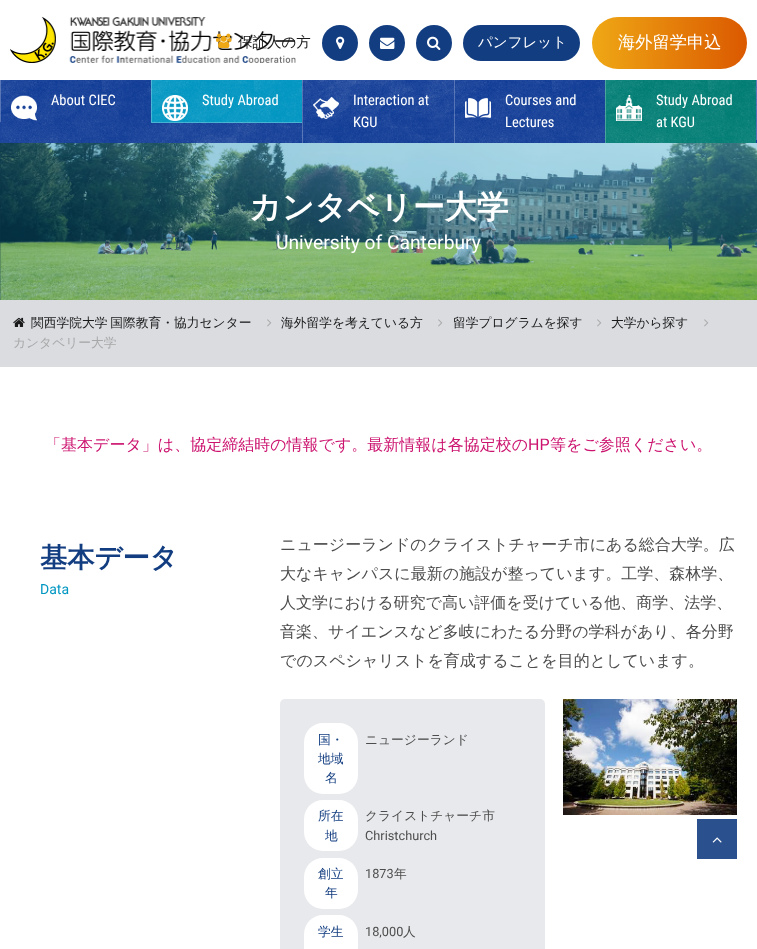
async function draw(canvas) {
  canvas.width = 757
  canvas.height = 949
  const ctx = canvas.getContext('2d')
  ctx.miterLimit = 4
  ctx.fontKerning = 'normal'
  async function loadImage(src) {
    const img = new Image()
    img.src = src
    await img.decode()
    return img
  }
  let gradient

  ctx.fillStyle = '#fff'
  ctx.fillRect(0, 0, 757, 949)
  ctx.drawImage(await loadImage('image0.png'), 10, 17, 286, 46)
  ctx.drawImage(await loadImage('image1.png'), 216, 33, 16, 16)
  ctx.font = '500 14.5px WenQuanYi Zen Hei'
  ctx.fillStyle = '#1a1a1a'
  ctx.fillText('保証人の方', 238, 47)
  ctx.fillStyle = '#123d80'
  ctx.beginPath()
  ctx.arc(340, 43, 18, 0, 2 * Math.PI)
  ctx.fill()
  ctx.drawImage(await loadImage('image2.png'), 336, 36, 9, 13)
  ctx.beginPath()
  ctx.arc(387, 43, 18, 0, 2 * Math.PI)
  ctx.fill()
  ctx.drawImage(await loadImage('image3.png'), 380, 37, 15, 12)
  ctx.beginPath()
  ctx.arc(434, 43, 18, 0, 2 * Math.PI)
  ctx.fill()
  ctx.drawImage(await loadImage('image4.png'), 427, 36, 14, 14)
  ctx.beginPath()
  ctx.roundRect(463, 25, 117, 36, 18)
  ctx.fill()
  ctx.fillStyle = '#fff'
  ctx.fillText('パンフレット', 478, 47)
  gradient = ctx.createLinearGradient(592, 43, 747, 43)
  gradient.addColorStop(0, '#efa815')
  gradient.addColorStop(1, '#db5900')
  ctx.fillStyle = gradient
  ctx.beginPath()
  ctx.roundRect(592, 17, 155, 52, 26)
  ctx.fill()
  ctx.font = '500 17.25px WenQuanYi Zen Hei'
  ctx.fillStyle = '#fff'
  ctx.fillText('海外留学申込', 618, 48)
  ctx.fillStyle = '#123d97'
  ctx.fillRect(0, 80, 757, 63)
  ctx.drawImage(await loadImage('image5.png'), 0, 80, 757, 63)
  ctx.fillStyle = '#ffffff40'
  ctx.fillRect(756, 80, 1, 60)
  ctx.fillRect(0, 80, 1, 42)
  ctx.drawImage(await loadImage('image6.png'), 11, 95, 26, 26)
  ctx.font = '14.5px Roboto Condensed'
  ctx.fillStyle = '#fff'
  ctx.fillText('About CIEC', 51, 105)
  ctx.fillStyle = '#0096c2'
  ctx.fillRect(151, 80, 151, 43)
  ctx.drawImage(await loadImage('image7.png'), 151, 80, 151, 43)
  ctx.fillStyle = '#ffffff40'
  ctx.beginPath()
  ctx.moveTo(302, 123)
  ctx.lineTo(151, 123)
  ctx.lineTo(152, 122)
  ctx.lineTo(302, 122)
  ctx.closePath()
  ctx.fill()
  ctx.beginPath()
  ctx.moveTo(151, 123)
  ctx.lineTo(151, 80)
  ctx.lineTo(152, 80)
  ctx.lineTo(152, 122)
  ctx.closePath()
  ctx.fill()
  ctx.drawImage(await loadImage('image8.png'), 162, 95, 26, 26)
  ctx.fillStyle = '#fff'
  ctx.fillText('Study Abroad', 202, 105)
  ctx.fillStyle = '#ffffff40'
  ctx.fillRect(302, 80, 1, 63)
  ctx.drawImage(await loadImage('image9.png'), 313, 97, 26, 22)
  ctx.fillStyle = '#fff'
  ctx.fillText('Interaction at', 353, 105)
  ctx.fillText('KGU', 353, 127)
  ctx.fillStyle = '#ffffff40'
  ctx.fillRect(454, 80, 1, 63)
  ctx.drawImage(await loadImage('image10.png'), 465, 98, 26, 20)
  ctx.fillStyle = '#fff'
  ctx.fillText('Courses and', 505, 105)
  ctx.fillText('Lectures', 505, 127)
  ctx.fillStyle = '#007d74'
  ctx.fillRect(605, 80, 151, 63)
  ctx.drawImage(await loadImage('image11.png'), 605, 80, 151, 63)
  ctx.fillStyle = '#ffffff40'
  ctx.fillRect(605, 80, 1, 63)
  ctx.drawImage(await loadImage('image12.png'), 616, 95, 26, 26)
  ctx.fillStyle = '#fff'
  ctx.fillText('Study Abroad', 656, 105)
  ctx.fillText('at KGU', 656, 127)
  ctx.drawImage(await loadImage('image13.png'), 0, 143, 757, 157)
  ctx.font = 'bold 32px WenQuanYi Zen Hei'
  ctx.fillText('カンタベリー大学', 249, 218)
  ctx.font = '19.25px Roboto'
  ctx.fillText('University of Canterbury', 276, 249)
  ctx.fillStyle = '#dadce0'
  ctx.fillRect(0, 300, 757, 67)
  ctx.drawImage(await loadImage('image14.png'), 13, 317, 12, 10)
  ctx.wordSpacing = '-1px'
  ctx.font = '500 12.75px WenQuanYi Zen Hei'
  ctx.fillStyle = '#1a1a1a'
  ctx.fillText('関西学院大学 国際教育・協力センター', 31, 327)
  ctx.drawImage(await loadImage('image15.png'), 267, 319, 5, 8)
  ctx.wordSpacing = '0px'
  ctx.fillText('海外留学を考えている方', 281, 327)
  ctx.drawImage(await loadImage('image15.png'), 438, 319, 5, 8)
  ctx.fillText('留学プログラムを探す', 453, 327)
  ctx.drawImage(await loadImage('image15.png'), 597, 319, 5, 8)
  ctx.fillText('大学から探す', 611, 327)
  ctx.drawImage(await loadImage('image15.png'), 704, 319, 5, 8)
  ctx.fillStyle = '#a8a8a8'
  ctx.fillText('カンタベリー大学', 13, 347)
  ctx.font = '500 16px WenQuanYi Zen Hei'
  ctx.fillStyle = '#cc146f'
  ctx.fillText('「基本データ」は、協定締結時の情報です。最新情報は各協定校の', 45, 450)
  ctx.font = '16px Roboto'
  ctx.fillText('HP', 528, 450)
  ctx.font = '500 16px WenQuanYi Zen Hei'
  ctx.fillText('等をご参照ください。', 550, 450)
  ctx.font = 'bold 27.25px WenQuanYi Zen Hei'
  ctx.fillStyle = '#123d80'
  ctx.fillText('基本データ', 40, 567)
  ctx.font = '14px Roboto'
  ctx.fillStyle = '#0096c2'
  ctx.fillText('Data', 40, 594)
  ctx.font = '500 16px WenQuanYi Zen Hei'
  ctx.fillStyle = '#4d4d4d'
  ctx.fillText('ニュージーランドのクライストチャーチ市にある総合大学。広', 280, 550)
  ctx.fillText('大なキャンパスに最新の施設が整っています。工学、森林学、', 280, 579)
  ctx.fillText('人文学における研究で高い評価を受けている他、商学、法学、', 280, 608)
  ctx.fillText('音楽、サイエンスなど多岐にわたる分野の学科があり、各分野', 280, 637)
  ctx.fillText('でのスペシャリストを育成することを目的としています。', 280, 666)
  ctx.fillStyle = '#e8e9ec'
  ctx.beginPath()
  ctx.roundRect(280, 699, 265, 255, 5)
  ctx.fill()
  ctx.fillStyle = '#fff'
  ctx.beginPath()
  ctx.roundRect(304, 723, 54, 71, 19)
  ctx.fill()
  ctx.font = '500 12.75px WenQuanYi Zen Hei'
  ctx.fillStyle = '#123d80'
  ctx.fillText('国・', 318, 744)
  ctx.fillText('地域', 318, 763)
  ctx.fillText('名', 325, 782)
  ctx.fillStyle = '#4d4d4d'
  ctx.fillText('ニュージーランド', 365, 744)
  ctx.fillStyle = '#fff'
  ctx.beginPath()
  ctx.roundRect(304, 800, 54, 51, 19)
  ctx.fill()
  ctx.fillStyle = '#123d80'
  ctx.fillText('所在', 318, 820)
  ctx.fillText('地', 325, 840)
  ctx.fillStyle = '#4d4d4d'
  ctx.fillText('クライストチャーチ市', 365, 820)
  ctx.font = '12.75px Roboto'
  ctx.fillText('Christchurch', 365, 840)
  ctx.fillStyle = '#fff'
  ctx.beginPath()
  ctx.roundRect(304, 858, 54, 51, 19)
  ctx.fill()
  ctx.font = '500 12.75px WenQuanYi Zen Hei'
  ctx.fillStyle = '#123d80'
  ctx.fillText('創立', 318, 878)
  ctx.fillText('年', 325, 897)
  ctx.font = '12.75px Roboto'
  ctx.fillStyle = '#4d4d4d'
  ctx.fillText('1873', 365, 878)
  ctx.font = '500 12.75px WenQuanYi Zen Hei'
  ctx.fillText('年', 394, 878)
  ctx.fillStyle = '#fff'
  ctx.beginPath()
  ctx.roundRect(304, 915, 54, 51, 19)
  ctx.fill()
  ctx.fillStyle = '#123d80'
  ctx.fillText('学生', 318, 936)
  ctx.font = '12.75px Roboto'
  ctx.fillStyle = '#4d4d4d'
  ctx.fillText('18,000', 365, 936)
  ctx.font = '500 12.75px WenQuanYi Zen Hei'
  ctx.fillText('人', 403, 936)
  ctx.drawImage(await loadImage('image16.png'), 563, 699, 174, 116)
  ctx.fillStyle = '#2a508d'
  ctx.fillRect(697, 819, 40, 40)
  ctx.drawImage(await loadImage('image17.png'), 712, 837, 10, 6)
}

draw(document.querySelector('canvas'))
